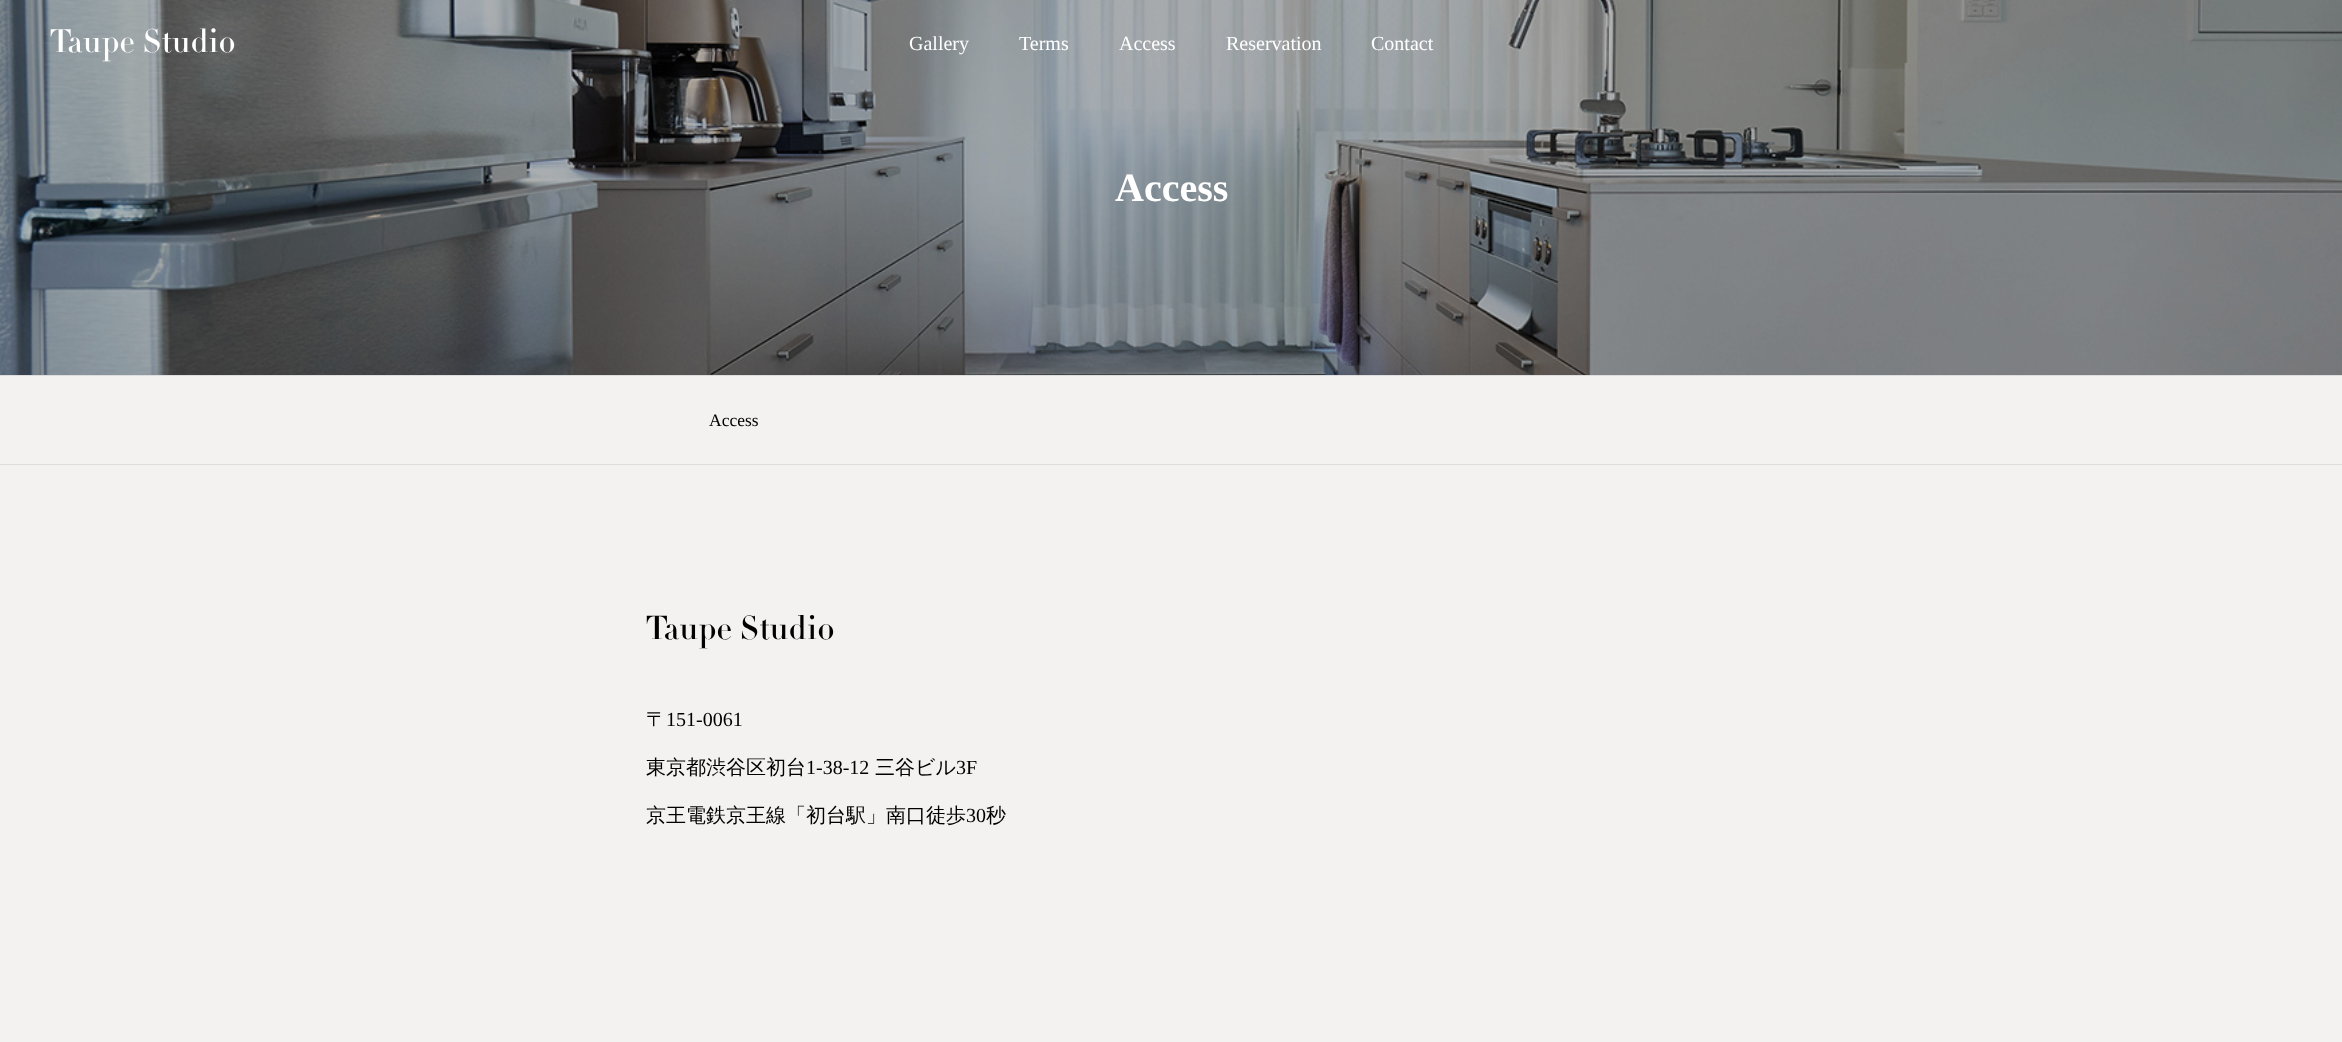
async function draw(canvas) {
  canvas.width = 2342
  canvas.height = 1042
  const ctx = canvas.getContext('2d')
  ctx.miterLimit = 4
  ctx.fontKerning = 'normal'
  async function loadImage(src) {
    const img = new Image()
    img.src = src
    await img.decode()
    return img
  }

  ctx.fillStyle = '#f4f2f0'
  ctx.fillRect(0, 0, 2342, 1042)
  ctx.drawImage(await loadImage('image0.png'), 0, 0, 2342, 375)
  ctx.font = '32px Didot'
  ctx.fillStyle = '#fff'
  ctx.fillText('Taupe Studio', 50, 52)
  ctx.font = '20px Liberation Serif'
  ctx.fillText('Gallery', 909, 50)
  ctx.fillText('Terms', 1019, 50)
  ctx.fillText('Access', 1119, 50)
  ctx.fillText('Reservation', 1226, 50)
  ctx.fillText('Contact', 1371, 50)
  ctx.font = 'bold 40px Liberation Serif'
  ctx.fillText('Access', 1115, 201)
  ctx.fillStyle = '#ddd'
  ctx.fillRect(0, 375, 2342, 1)
  ctx.fillRect(0, 464, 2342, 1)
  ctx.font = '17.5px Liberation Serif'
  ctx.fillStyle = '#000'
  ctx.fillText('Access', 709, 426)
  ctx.font = '32.5px Didot'
  ctx.fillText('Taupe Studio', 646, 639)
  ctx.font = '500 20px WenQuanYi Zen Hei'
  ctx.fillText('〒', 646, 726)
  ctx.font = '20px Liberation Serif'
  ctx.fillText('151-0061', 666, 726)
  ctx.font = '500 20px WenQuanYi Zen Hei'
  ctx.fillText('東京都渋谷区初台', 646, 774)
  ctx.font = '20px Liberation Serif'
  ctx.fillText('1-38-12', 806, 774)
  ctx.font = '500 20px WenQuanYi Zen Hei'
  ctx.fillText('三谷ビル', 875, 774)
  ctx.font = '20px Liberation Serif'
  ctx.fillText('3F', 956, 774)
  ctx.font = '500 20px WenQuanYi Zen Hei'
  ctx.fillText('京王電鉄京王線「初台駅」南口徒歩', 646, 822)
  ctx.font = '20px Liberation Serif'
  ctx.fillText('30', 966, 822)
  ctx.font = '500 20px WenQuanYi Zen Hei'
  ctx.fillText('秒', 986, 822)
}

draw(document.querySelector('canvas'))
